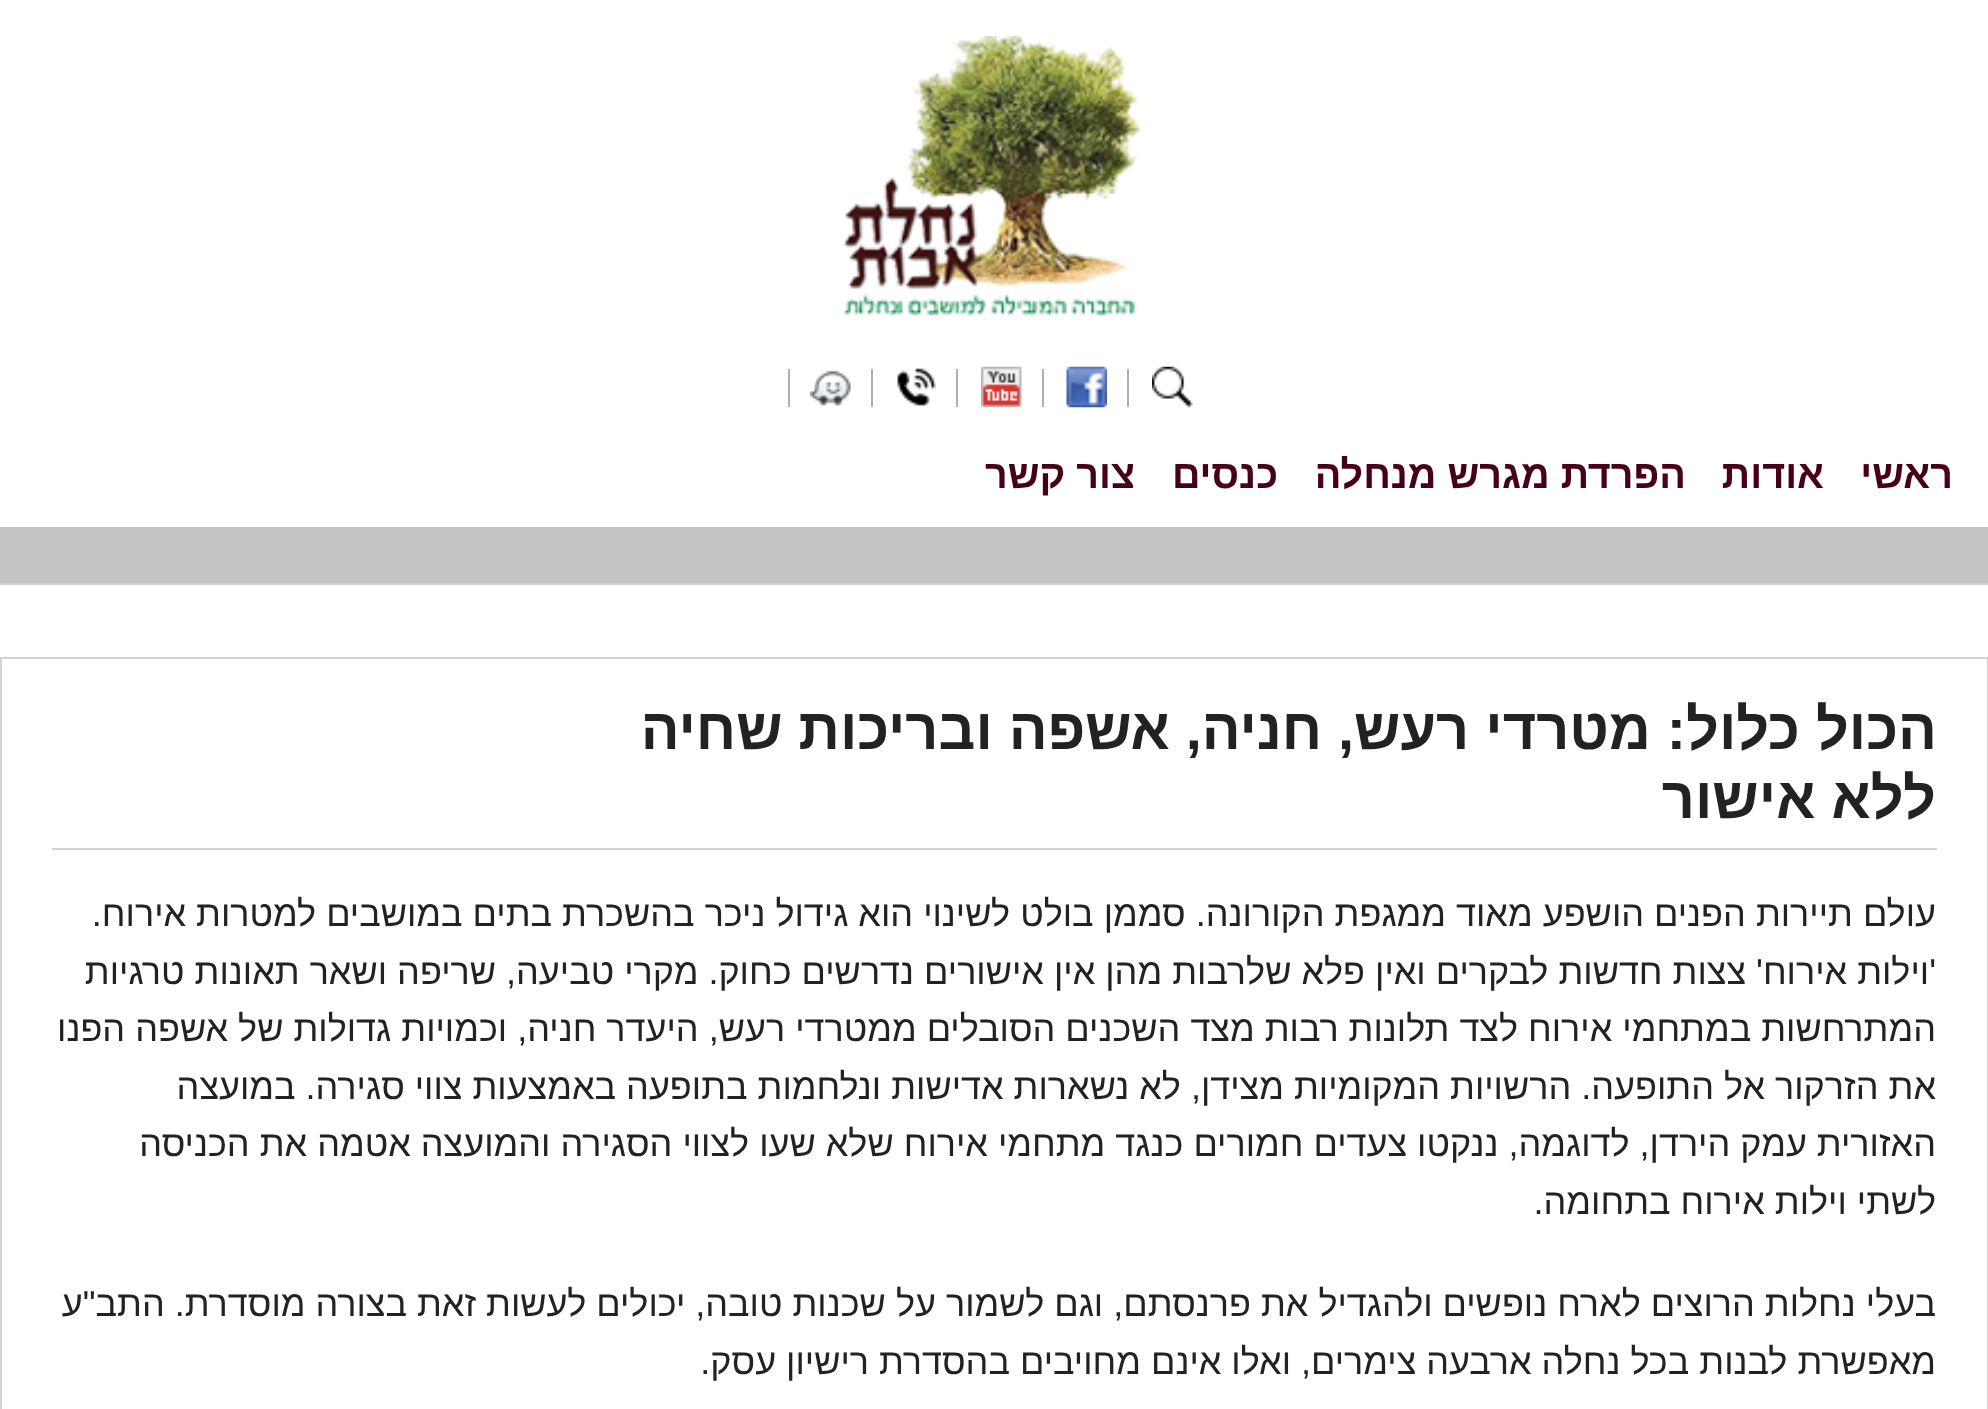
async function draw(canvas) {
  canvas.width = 1988
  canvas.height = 1409
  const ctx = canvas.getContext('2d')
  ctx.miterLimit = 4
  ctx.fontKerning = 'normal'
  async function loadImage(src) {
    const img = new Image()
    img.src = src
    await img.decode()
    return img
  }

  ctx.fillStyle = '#fff'
  ctx.fillRect(0, 0, 1988, 1409)
  ctx.drawImage(await loadImage('image0.png'), 843, 36, 299, 280)
  ctx.fillStyle = '#b0b0b0'
  ctx.fillRect(1127, 369, 2, 38)
  ctx.drawImage(await loadImage('image1.png'), 1152, 366, 41, 42)
  ctx.fillRect(1042, 369, 2, 38)
  ctx.drawImage(await loadImage('image2.png'), 1066, 366, 41, 42)
  ctx.fillRect(956, 369, 2, 38)
  ctx.drawImage(await loadImage('image3.png'), 981, 366, 41, 42)
  ctx.drawImage(await loadImage('image4.png'), 897, 368, 39, 38)
  ctx.fillRect(871, 369, 2, 38)
  ctx.fillRect(788, 369, 2, 38)
  ctx.drawImage(await loadImage('image5.png'), 810, 370, 41, 36)
  ctx.direction = 'rtl'
  ctx.font = 'bold 39.5px Liberation Sans'
  ctx.fillStyle = '#480019'
  ctx.fillText('ראשי', 1953, 488)
  ctx.fillText('אודות', 1824, 488)
  ctx.fillText('הפרדת מגרש מנחלה', 1686, 488)
  ctx.fillText('כנסים', 1278, 488)
  ctx.fillText('צור קשר', 1135, 488)
  ctx.fillStyle = '#c5c5c5'
  ctx.fillRect(0, 527, 1988, 56)
  ctx.fillStyle = '#d3d3d3'
  ctx.fillRect(0, 583, 1988, 2)
  ctx.strokeStyle = '#d3d3d3'
  ctx.lineWidth = 2
  ctx.strokeRect(1, 658, 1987, 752)
  ctx.fillRect(52, 848, 1885, 2)
  ctx.font = 'bold 57.6px Liberation Sans'
  ctx.fillStyle = '#222'
  ctx.fillText('הכול כלול: מטרדי רעש, חניה, אשפה ובריכות שחיה', 1937, 749)
  ctx.fillText('ללא אישור', 1936, 818)
  ctx.font = '36px Liberation Sans'
  ctx.fillText('עולם תיירות הפנים הושפע מאוד ממגפת הקורונה. סממן בולט לשינוי הוא גידול ניכר בהשכרת בתים במושבים למטרות אירוח.', 1936, 926)
  ctx.fillText('\'וילות אירוח\' צצות חדשות לבקרים ואין פלא שלרבות מהן אין אישורים נדרשים כחוק. מקרי טביעה, שריפה ושאר תאונות טרגיות', 1936, 984)
  ctx.fillText('המתרחשות במתחמי אירוח לצד תלונות רבות מצד השכנים הסובלים ממטרדי רעש, היעדר חניה, וכמויות גדולות של אשפה הפנו', 1936, 1041)
  ctx.fillText('את הזרקור אל התופעה. הרשויות המקומיות מצידן, לא נשארות אדישות ונלחמות בתופעה באמצעות צווי סגירה. במועצה', 1936, 1099)
  ctx.fillText('האזורית עמק הירדן, לדוגמה, ננקטו צעדים חמורים כנגד מתחמי אירוח שלא שעו לצווי הסגירה והמועצה אטמה את הכניסה', 1936, 1156)
  ctx.fillText('לשתי וילות אירוח בתחומה.', 1936, 1214)
  ctx.fillText('בעלי נחלות הרוצים לארח נופשים ולהגדיל את פרנסתם, וגם לשמור על שכנות טובה, יכולים לעשות זאת בצורה מוסדרת. התב"ע', 1936, 1316)
  ctx.fillText('מאפשרת לבנות בכל נחלה ארבעה צימרים, ואלו אינם מחויבים בהסדרת רישיון עסק.', 1936, 1374)
}

draw(document.querySelector('canvas'))
